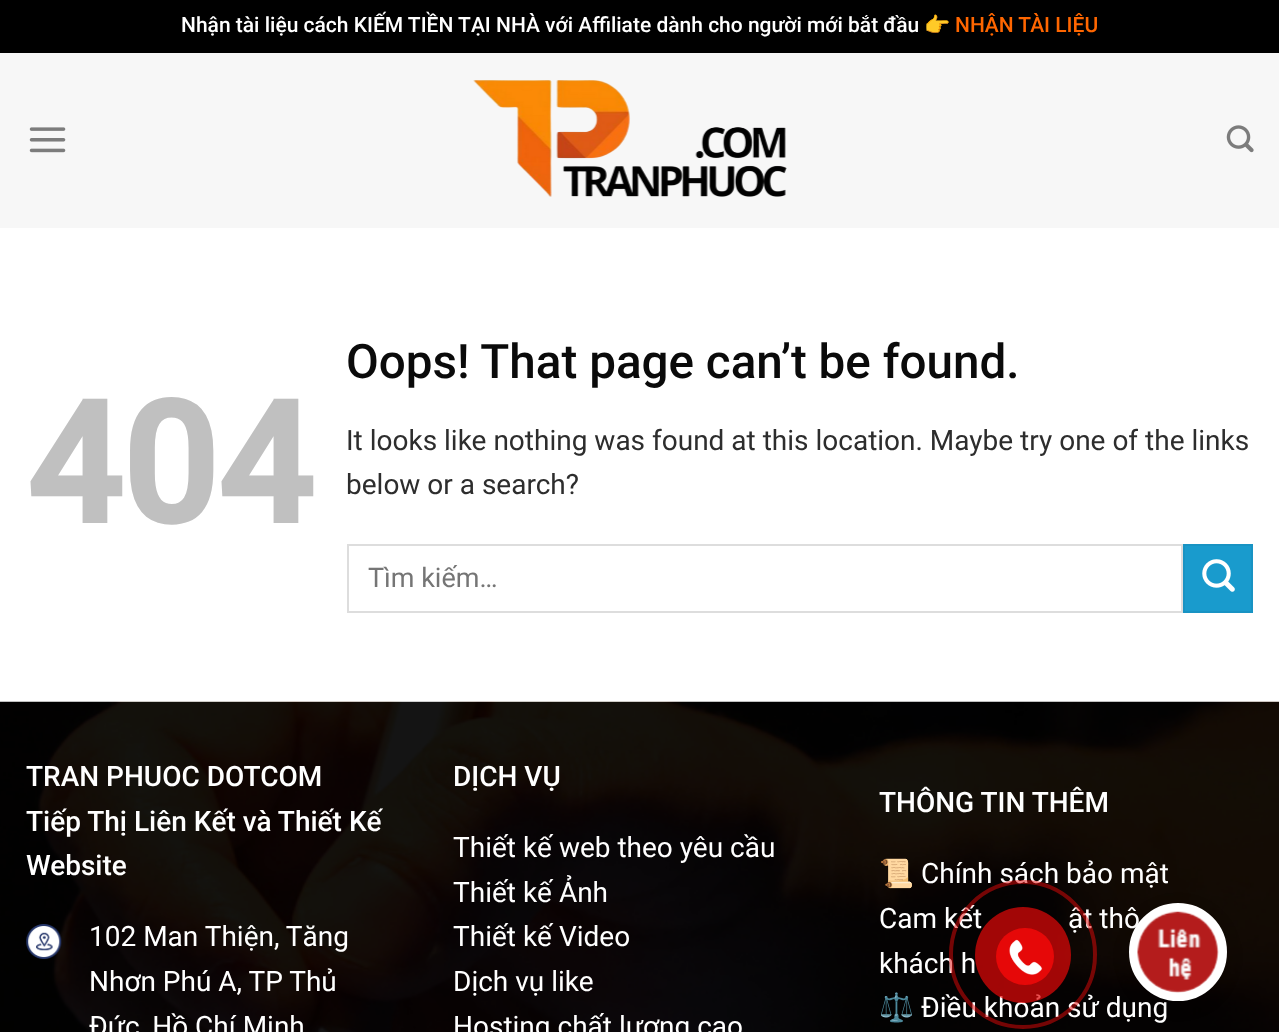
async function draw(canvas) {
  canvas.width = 1279
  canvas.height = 1032
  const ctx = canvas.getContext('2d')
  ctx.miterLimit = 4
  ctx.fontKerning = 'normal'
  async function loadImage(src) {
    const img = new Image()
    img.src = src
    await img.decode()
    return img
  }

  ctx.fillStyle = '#fff'
  ctx.fillRect(0, 0, 1279, 1032)
  ctx.fillStyle = '#f7f7f7'
  ctx.fillRect(0, 53, 1279, 175)
  ctx.fillStyle = '#000'
  ctx.fillRect(0, 0, 1279, 53)
  ctx.font = '500 21px Roboto'
  ctx.fillStyle = '#fff'
  ctx.fillText('Nhận tài liệu cách KIẾM TIỀN TẠI NHÀ với Affiliate dành cho người mới bắt đầu', 181, 32)
  ctx.font = '21px Noto Color Emoji'
  ctx.fillStyle = '#f60'
  ctx.fillText('👉', 924, 32)
  ctx.font = '500 21px Roboto'
  ctx.fillText('NHẬN TÀI LIỆU', 955, 32)
  ctx.drawImage(await loadImage('image0.png'), 29, 127, 37, 26)
  ctx.drawImage(await loadImage('image1.png'), 473, 80, 314, 117)
  ctx.drawImage(await loadImage('image2.png'), 1226, 125, 28, 28)
  ctx.font = 'bold 168px Roboto'
  ctx.fillStyle = '#c0c0c0'
  ctx.fillText('404', 26, 523)
  ctx.font = '500 47.6px Roboto'
  ctx.fillStyle = '#0a0a0a'
  ctx.fillText('Oops! That page can’t be found.', 346, 378)
  ctx.font = '28px Roboto'
  ctx.fillStyle = '#2d2d2d'
  ctx.fillText('It looks like nothing was found at this location. Maybe try one of the links', 346, 450)
  ctx.fillText('below or a search?', 346, 494)
  ctx.strokeStyle = '#ddd'
  ctx.lineWidth = 2
  ctx.strokeRect(348, 545, 834, 67)
  ctx.font = '27px Roboto'
  ctx.fillStyle = '#757575'
  ctx.fillText('Tìm kiếm…', 368, 587)
  ctx.fillStyle = '#199bcd'
  ctx.beginPath()
  ctx.rect(1184, 545, 68, 67)
  ctx.fill()
  ctx.strokeStyle = '#1893c3'
  ctx.stroke()
  ctx.drawImage(await loadImage('image3.png'), 1202, 559, 33, 33)
  ctx.drawImage(await loadImage('image4.png'), 0, 701, 1279, 331)
  ctx.font = '500 28px Roboto'
  ctx.fillStyle = '#fff'
  ctx.fillText('TRAN PHUOC DOTCOM', 26, 786)
  ctx.fillText('Tiếp Thị Liên Kết và Thiết Kế', 26, 831)
  ctx.fillText('Website', 26, 875)
  ctx.drawImage(await loadImage('image5.png'), 26, 924, 36, 35)
  ctx.font = '28px Roboto'
  ctx.fillText('102 Man Thiện, Tăng', 89, 946)
  ctx.fillText('Nhơn Phú A, TP Thủ', 89, 991)
  ctx.fillText('Đức, Hồ Chí Minh', 89, 1036)
  ctx.font = '500 28px Roboto'
  ctx.fillText('DỊCH VỤ', 453, 786)
  ctx.font = '28px Roboto'
  ctx.fillText('Thiết kế web theo yêu cầu', 453, 857)
  ctx.fillText('Thiết kế Ảnh', 453, 902)
  ctx.fillText('Thiết kế Video', 453, 946)
  ctx.fillText('Dịch vụ like', 453, 991)
  ctx.fillText('Hosting chất lượng cao', 453, 1036)
  ctx.font = '500 28px Roboto'
  ctx.fillText('THÔNG TIN THÊM', 879, 812)
  ctx.font = '28px Noto Color Emoji'
  ctx.fillText('📜', 879, 883)
  ctx.font = '28px Roboto'
  ctx.fillText('Chính sách bảo mật', 921, 883)
  ctx.fillText('Cam kết', 879, 928)
  ctx.fillText('ật thô', 1068, 928)
  ctx.fillText('khách h', 879, 973)
  ctx.font = '28px Noto Color Emoji'
  ctx.fillText('⚖️', 879, 1017)
  ctx.font = '28px Roboto'
  ctx.fillText('Điều khoản sử dụng', 921, 1017)
  ctx.beginPath()
  ctx.roundRect(951, 882, 144, 145, 72)
  ctx.strokeStyle = '#e6080880'
  ctx.lineWidth = 4
  ctx.stroke()
  ctx.fillStyle = '#e60808b3'
  ctx.beginPath()
  ctx.arc(1023, 955, 48, 0, 2 * Math.PI)
  ctx.fill()
  ctx.fillStyle = '#e60808'
  ctx.beginPath()
  ctx.roundRect(996, 928, 58, 57, 28.5)
  ctx.fill()
  ctx.drawImage(await loadImage('image6.png'), 1009, 939, 34, 36)
  ctx.fillStyle = '#00000014'
  ctx.filter = 'blur(9px)'
  ctx.beginPath()
  ctx.roundRect(1129, 908, 98, 98, 49)
  ctx.fill()
  ctx.filter = 'none'
  ctx.fillStyle = '#fff'
  ctx.beginPath()
  ctx.arc(1178, 952, 44.5, 0, 2 * Math.PI)
  ctx.fill()
  ctx.strokeStyle = '#fff'
  ctx.lineWidth = 9
  ctx.stroke()
  ctx.drawImage(await loadImage('image7.png'), 1137, 911, 82, 82)
}

draw(document.querySelector('canvas'))
